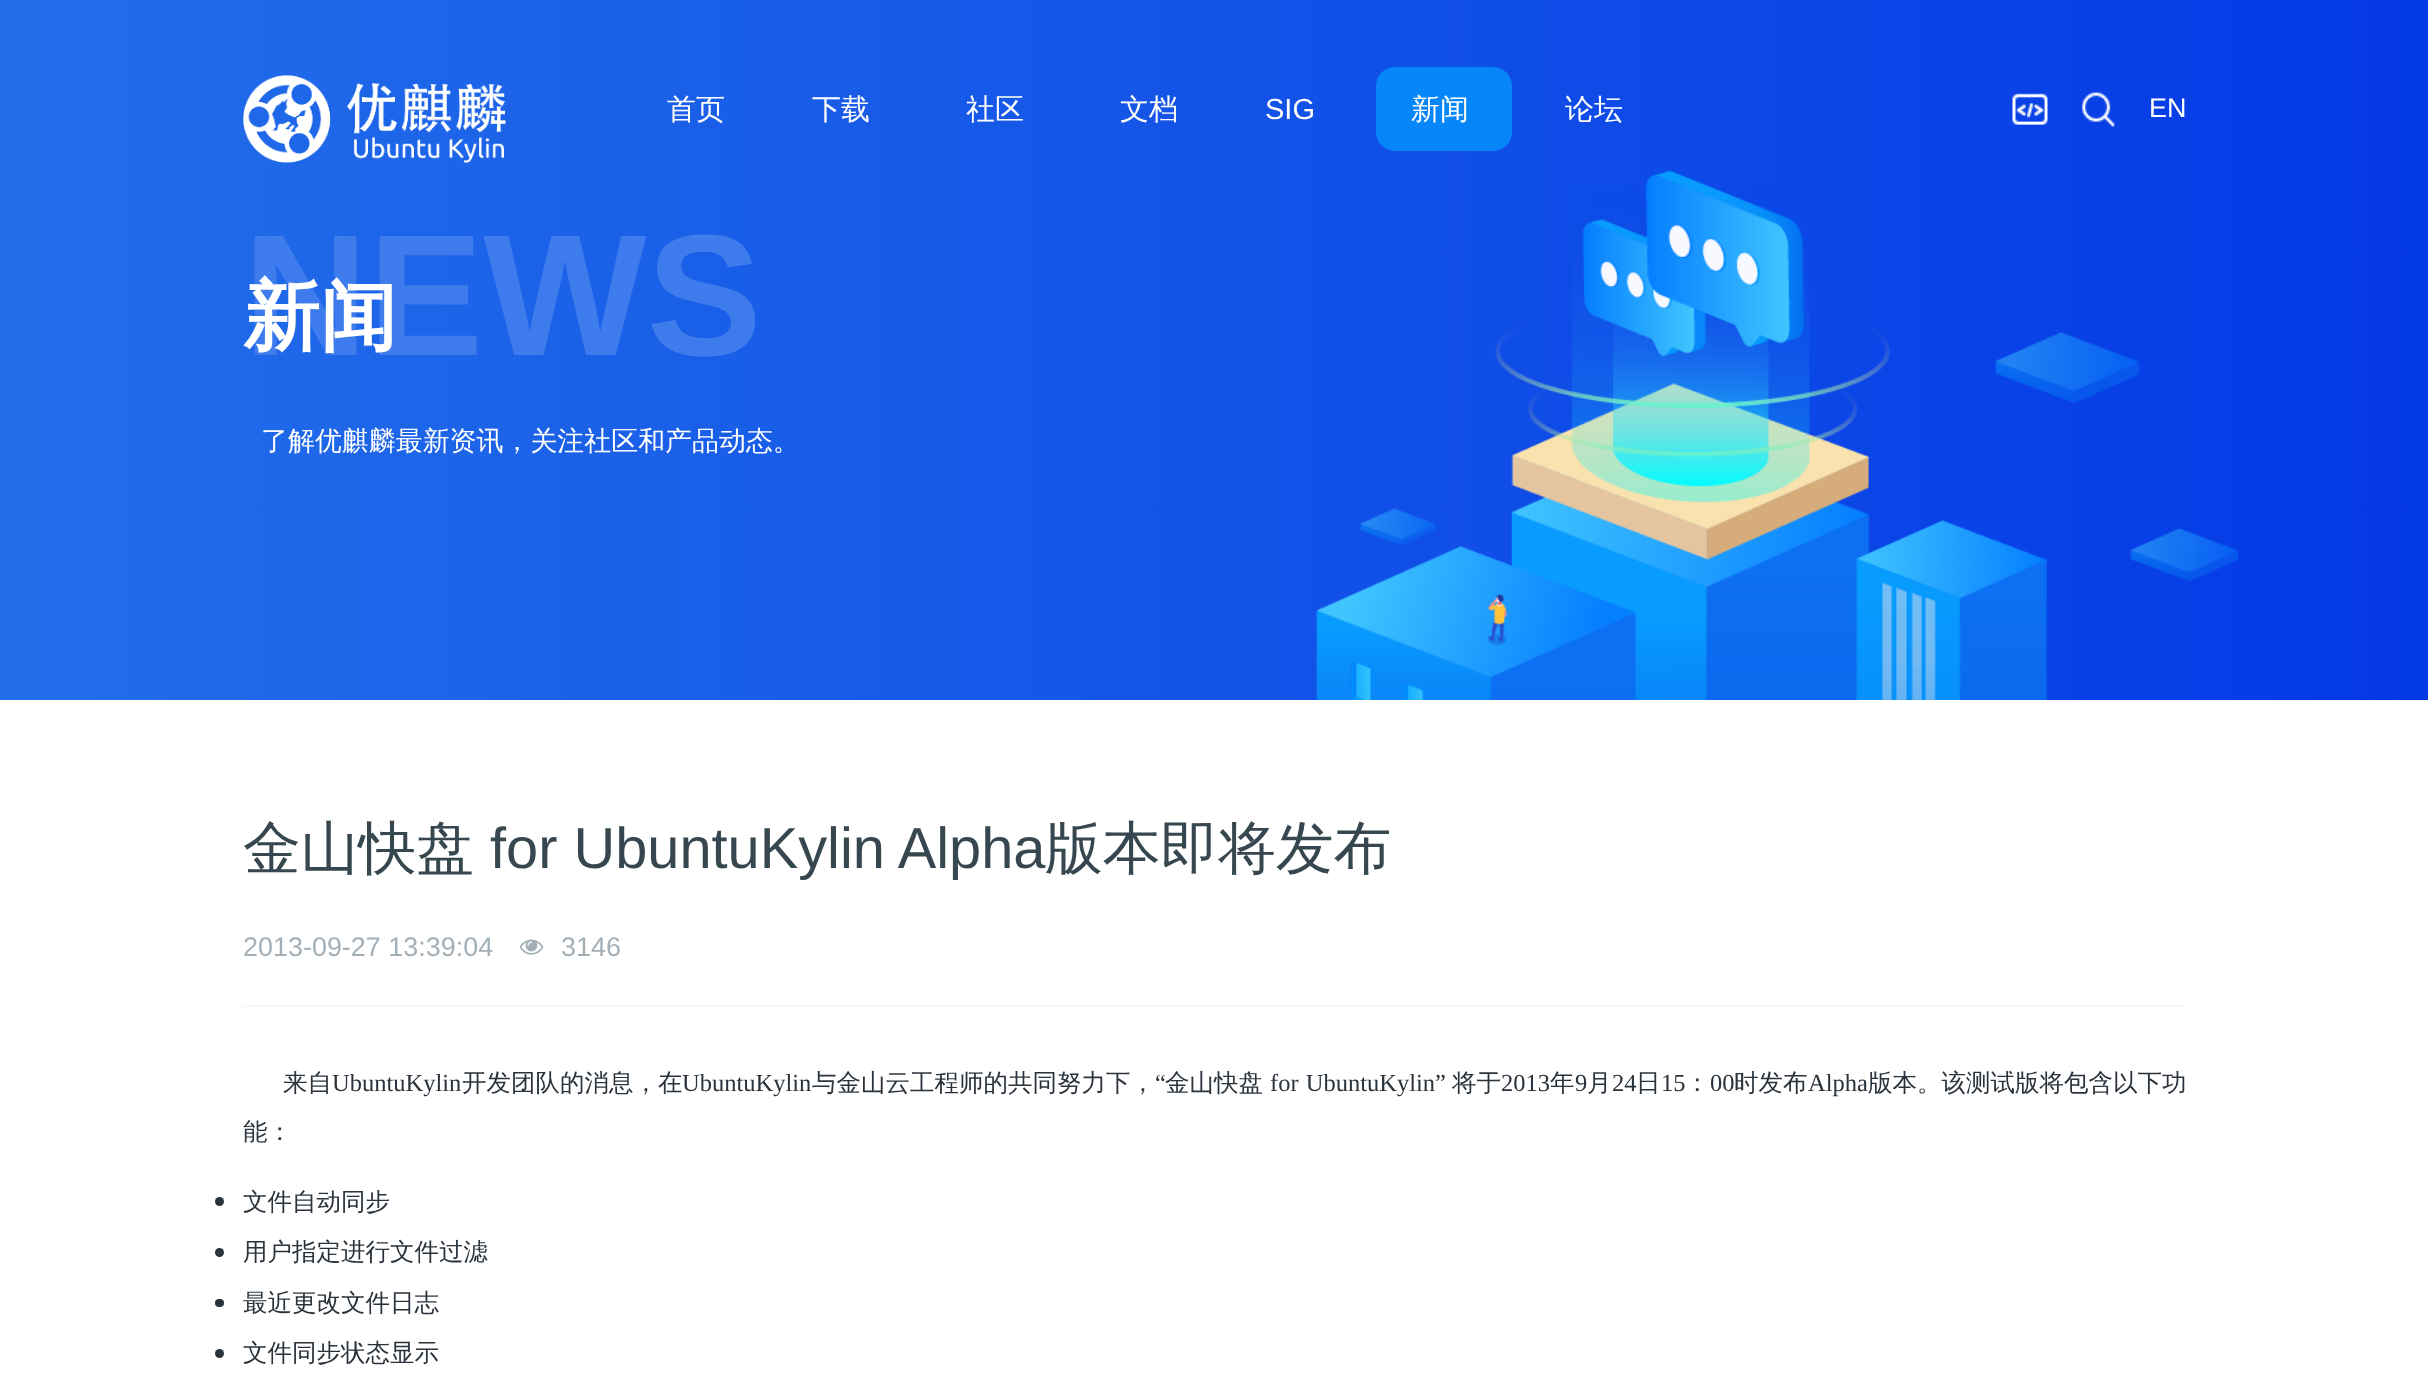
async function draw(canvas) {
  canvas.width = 2428
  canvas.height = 1398
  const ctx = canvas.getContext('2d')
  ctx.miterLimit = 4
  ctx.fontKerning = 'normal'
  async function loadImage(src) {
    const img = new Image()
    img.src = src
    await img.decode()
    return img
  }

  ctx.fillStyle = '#fff'
  ctx.fillRect(0, 0, 2428, 1398)
  ctx.drawImage(await loadImage('image3.png'), 0, 0, 2428, 700)
  ctx.drawImage(await loadImage('image0.png'), 243, 75, 263, 88)
  ctx.font = '500 29px WenQuanYi Zen Hei'
  ctx.fillText('首页', 667, 119)
  ctx.fillText('下载', 812, 119)
  ctx.fillText('社区', 966, 119)
  ctx.fillText('文档', 1120, 119)
  ctx.font = '29px Liberation Sans'
  ctx.fillText('SIG', 1265, 119)
  ctx.fillStyle = '#0686f8'
  ctx.beginPath()
  ctx.roundRect(1376, 67, 136, 84, 19)
  ctx.fill()
  ctx.font = '500 29px WenQuanYi Zen Hei'
  ctx.fillStyle = '#fff'
  ctx.fillText('新闻', 1411, 119)
  ctx.fillText('论坛', 1565, 119)
  ctx.drawImage(await loadImage('image1.png'), 2012, 93, 36, 32)
  ctx.drawImage(await loadImage('image2.png'), 2082, 92, 33, 35)
  ctx.font = '26.95px Liberation Sans'
  ctx.fillText('EN', 2149, 117)
  ctx.font = 'bold 173px Liberation Sans'
  ctx.fillStyle = '#3e7bec'
  ctx.fillText('NEWS', 243, 355)
  ctx.font = 'bold 77px WenQuanYi Zen Hei'
  ctx.fillStyle = '#fff'
  ctx.fillText('新闻', 243, 343)
  ctx.font = '500 26.95px WenQuanYi Zen Hei'
  ctx.fillText('了解优麒麟最新资讯，关注社区和产品动态。', 261, 450)
  ctx.font = '500 57.75px WenQuanYi Zen Hei'
  ctx.fillStyle = '#37474f'
  ctx.fillText('金山快盘', 243, 868)
  ctx.font = '57.75px Liberation Sans'
  ctx.fillText('for UbuntuKylin Alpha', 490, 868)
  ctx.font = '500 57.75px WenQuanYi Zen Hei'
  ctx.fillText('版本即将发布', 1045, 868)
  ctx.fillStyle = '#f7f7f7'
  ctx.fillRect(243, 1005, 1943, 2)
  ctx.font = '26.95px Liberation Sans'
  ctx.fillStyle = '#a3afb7'
  ctx.fillText('2013-09-27 13:39:04', 243, 956)
  ctx.drawImage(await loadImage('image4.png'), 519, 939, 25, 16)
  ctx.fillText('3146', 561, 956)
  ctx.font = '500 24.5px WenQuanYi Zen Hei'
  ctx.fillStyle = '#2a333c'
  ctx.fillText('来自', 283, 1091)
  ctx.font = '24.5px Liberation Serif'
  ctx.fillText('UbuntuKylin', 332, 1091)
  ctx.font = '500 24.5px WenQuanYi Zen Hei'
  ctx.fillText('开发团队的消息，在', 462, 1091)
  ctx.font = '24.5px Liberation Serif'
  ctx.fillText('UbuntuKylin', 682, 1091)
  ctx.font = '500 24.5px WenQuanYi Zen Hei'
  ctx.fillText('与金山云工程师的共同努力下，', 812, 1091)
  ctx.font = '24.5px Liberation Serif'
  ctx.fillText('“', 1155, 1091)
  ctx.font = '500 24.5px WenQuanYi Zen Hei'
  ctx.fillText('金山快盘', 1165, 1091)
  ctx.wordSpacing = '1px'
  ctx.font = '24.5px Liberation Serif'
  ctx.fillText('for UbuntuKylin”', 1270, 1091)
  ctx.wordSpacing = '0px'
  ctx.font = '500 24.5px WenQuanYi Zen Hei'
  ctx.fillText('将于', 1452, 1091)
  ctx.font = '24.5px Liberation Serif'
  ctx.fillText('2013', 1501, 1091)
  ctx.font = '500 24.5px WenQuanYi Zen Hei'
  ctx.fillText('年', 1550, 1091)
  ctx.font = '24.5px Liberation Serif'
  ctx.fillText('9', 1575, 1091)
  ctx.font = '500 24.5px WenQuanYi Zen Hei'
  ctx.fillText('月', 1587, 1091)
  ctx.font = '24.5px Liberation Serif'
  ctx.fillText('24', 1612, 1091)
  ctx.font = '500 24.5px WenQuanYi Zen Hei'
  ctx.fillText('日', 1636, 1091)
  ctx.font = '24.5px Liberation Serif'
  ctx.fillText('15', 1661, 1091)
  ctx.font = '500 24.5px WenQuanYi Zen Hei'
  ctx.fillText('：', 1685, 1091)
  ctx.font = '24.5px Liberation Serif'
  ctx.fillText('00', 1710, 1091)
  ctx.font = '500 24.5px WenQuanYi Zen Hei'
  ctx.fillText('时发布', 1734, 1091)
  ctx.font = '24.5px Liberation Serif'
  ctx.fillText('Alpha', 1808, 1091)
  ctx.font = '500 24.5px WenQuanYi Zen Hei'
  ctx.fillText('版本。该测试版将包含以下功', 1868, 1091)
  ctx.fillText('能：', 243, 1140)
  ctx.beginPath()
  ctx.arc(219.5, 1201.5, 4.5, 0, 2 * Math.PI)
  ctx.fill()
  ctx.fillText('文件自动同步', 243, 1210)
  ctx.beginPath()
  ctx.arc(219.5, 1252.5, 4.5, 0, 2 * Math.PI)
  ctx.fill()
  ctx.fillText('用户指定进行文件过滤', 243, 1260)
  ctx.beginPath()
  ctx.roundRect(215, 1299, 9, 8, 4)
  ctx.fill()
  ctx.fillText('最近更改文件日志', 243, 1311)
  ctx.beginPath()
  ctx.arc(219.5, 1353.5, 4.5, 0, 2 * Math.PI)
  ctx.fill()
  ctx.fillText('文件同步状态显示', 243, 1361)
}

draw(document.querySelector('canvas'))
